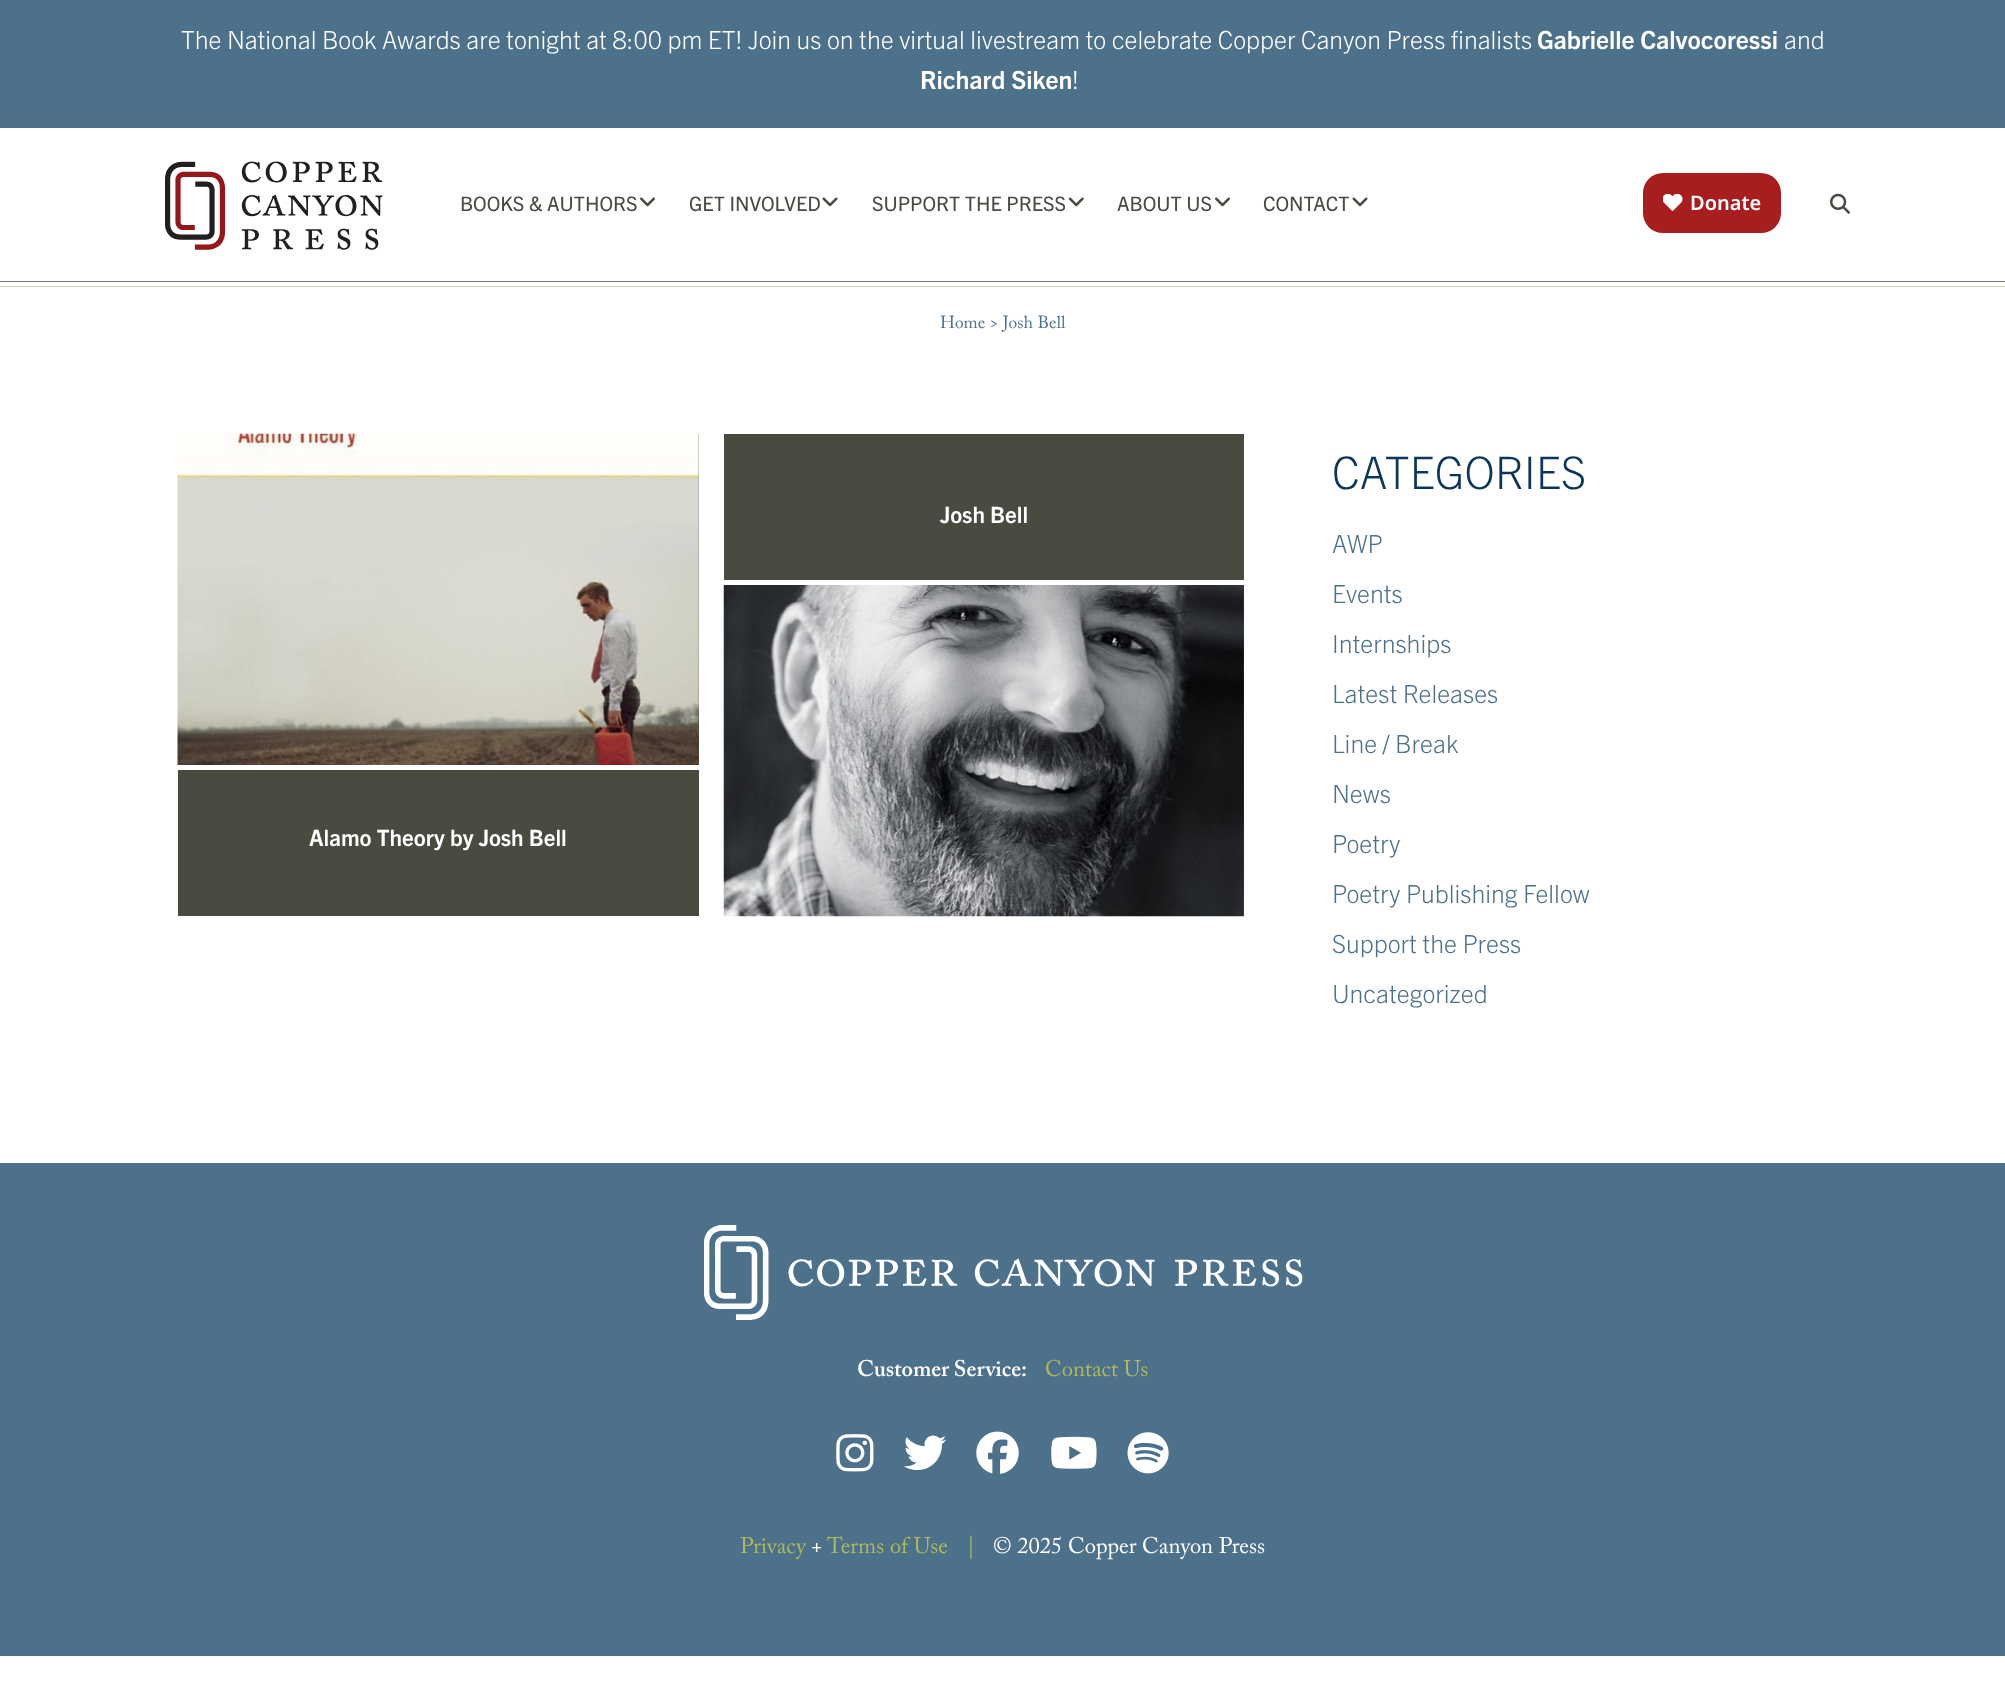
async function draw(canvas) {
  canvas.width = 2005
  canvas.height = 1706
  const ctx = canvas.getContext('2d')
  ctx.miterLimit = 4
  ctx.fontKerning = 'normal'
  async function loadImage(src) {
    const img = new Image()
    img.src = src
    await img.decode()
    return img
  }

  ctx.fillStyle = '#fff'
  ctx.fillRect(0, 0, 2005, 1706)
  ctx.fillStyle = '#777d79'
  ctx.fillRect(0, 281, 2005, 1)
  ctx.fillStyle = '#4e718b'
  ctx.fillRect(0, 0, 2005, 128)
  ctx.font = '300 25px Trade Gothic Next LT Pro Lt'
  ctx.fillStyle = '#fff'
  ctx.fillText('The National Book Awards are tonight at 8:00 pm ET! Join us on the virtual livestream to celebrate Copper Canyon Press finalists', 181, 49)
  ctx.font = 'bold 25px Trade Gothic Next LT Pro'
  ctx.fillText('Gabrielle Calvocoressi', 1537, 49)
  ctx.font = '300 25px Trade Gothic Next LT Pro Lt'
  ctx.fillText('and', 1784, 49)
  ctx.font = 'bold 25px Trade Gothic Next LT Pro'
  ctx.fillText('Richard Siken', 920, 89)
  ctx.font = '300 25px Trade Gothic Next LT Pro Lt'
  ctx.fillText('!', 1072, 89)
  ctx.drawImage(await loadImage('image0.png'), 165, 161, 218, 89)
  ctx.font = '20px Trade Gothic Next LT Pro'
  ctx.fillStyle = '#4b4a41'
  ctx.fillText('BOOKS & AUTHORS', 460, 211)
  ctx.drawImage(await loadImage('image1.png'), 640, 197, 15, 10)
  ctx.fillText('GET INVOLVED', 689, 211)
  ctx.drawImage(await loadImage('image2.png'), 822, 197, 16, 10)
  ctx.fillText('SUPPORT THE PRESS', 872, 211)
  ctx.drawImage(await loadImage('image3.png'), 1068, 197, 16, 10)
  ctx.fillText('ABOUT US', 1117, 211)
  ctx.drawImage(await loadImage('image1.png'), 1215, 197, 15, 10)
  ctx.fillText('CONTACT', 1263, 211)
  ctx.drawImage(await loadImage('image2.png'), 1352, 197, 16, 10)
  ctx.fillStyle = '#a81d1d'
  ctx.beginPath()
  ctx.roundRect(1643, 173, 138, 60, 20)
  ctx.fill()
  ctx.drawImage(await loadImage('image4.png'), 1663, 194, 20, 17)
  ctx.font = '600 20px Noto Sans'
  ctx.fillStyle = '#fff'
  ctx.fillText('Donate', 1690, 210)
  ctx.drawImage(await loadImage('image5.png'), 1830, 193, 20, 21)
  ctx.fillStyle = '#c8d0b4'
  ctx.fillRect(0, 286, 2005, 1)
  ctx.font = '17.5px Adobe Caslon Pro'
  ctx.fillStyle = '#4e718b'
  ctx.fillText('Home > Josh Bell', 940, 328)
  ctx.fillStyle = '#4b4a41'
  ctx.fillRect(724, 434, 520, 482)
  ctx.font = 'bold 22.5px Trade Gothic Next LT Pro'
  ctx.fillStyle = '#fff'
  ctx.fillText('Josh Bell', 940, 523)
  ctx.fillRect(724, 580, 520, 5)
  ctx.drawImage(await loadImage('image6.png'), 723, 585, 521, 332)
  ctx.fillStyle = '#4b4a41'
  ctx.fillRect(178, 434, 521, 482)
  ctx.fillStyle = '#fff'
  ctx.fillRect(178, 765, 521, 5)
  ctx.drawImage(await loadImage('image7.png'), 177, 433, 522, 332)
  ctx.fillText('Alamo Theory by Josh Bell', 309, 846)
  ctx.font = '300 45px Trade Gothic Next LT Pro Lt'
  ctx.fillStyle = '#0b355c'
  ctx.fillText('CATEGORIES', 1332, 489)
  ctx.font = '300 25px Trade Gothic Next LT Pro Lt'
  ctx.fillStyle = '#4e718b'
  ctx.fillText('AWP', 1332, 553)
  ctx.fillText('Events', 1332, 603)
  ctx.fillText('Internships', 1332, 653)
  ctx.fillText('Latest Releases', 1332, 703)
  ctx.fillText('Line / Break', 1332, 753)
  ctx.fillText('News', 1332, 803)
  ctx.fillText('Poetry', 1332, 853)
  ctx.fillText('Poetry Publishing Fellow', 1332, 903)
  ctx.fillText('Support the Press', 1332, 953)
  ctx.fillText('Uncategorized', 1332, 1003)
  ctx.fillRect(0, 1163, 2005, 493)
  ctx.drawImage(await loadImage('image8.png'), 704, 1225, 599, 95)
  ctx.font = '600 22.5px Adobe Caslon Pro'
  ctx.fillStyle = '#fff'
  ctx.fillText('Customer Service:', 857, 1376)
  ctx.font = '22.5px Adobe Caslon Pro'
  ctx.fillStyle = '#aeb95e'
  ctx.fillText('Contact Us', 1045, 1376)
  ctx.drawImage(await loadImage('image9.png'), 836, 1434, 38, 38)
  ctx.drawImage(await loadImage('image10.png'), 904, 1435, 43, 36)
  ctx.drawImage(await loadImage('image11.png'), 976, 1431, 43, 43)
  ctx.drawImage(await loadImage('image12.png'), 1051, 1436, 46, 33)
  ctx.drawImage(await loadImage('image13.png'), 1127, 1432, 42, 42)
  ctx.fillText('Privacy', 740, 1553)
  ctx.fillStyle = '#fff'
  ctx.fillText('+', 811, 1553)
  ctx.fillStyle = '#aeb95e'
  ctx.fillText('Terms of Use', 827, 1553)
  ctx.fillText('|', 967, 1553)
  ctx.fillStyle = '#fff'
  ctx.fillText('© 2025 Copper Canyon Press', 993, 1553)
}

draw(document.querySelector('canvas'))
